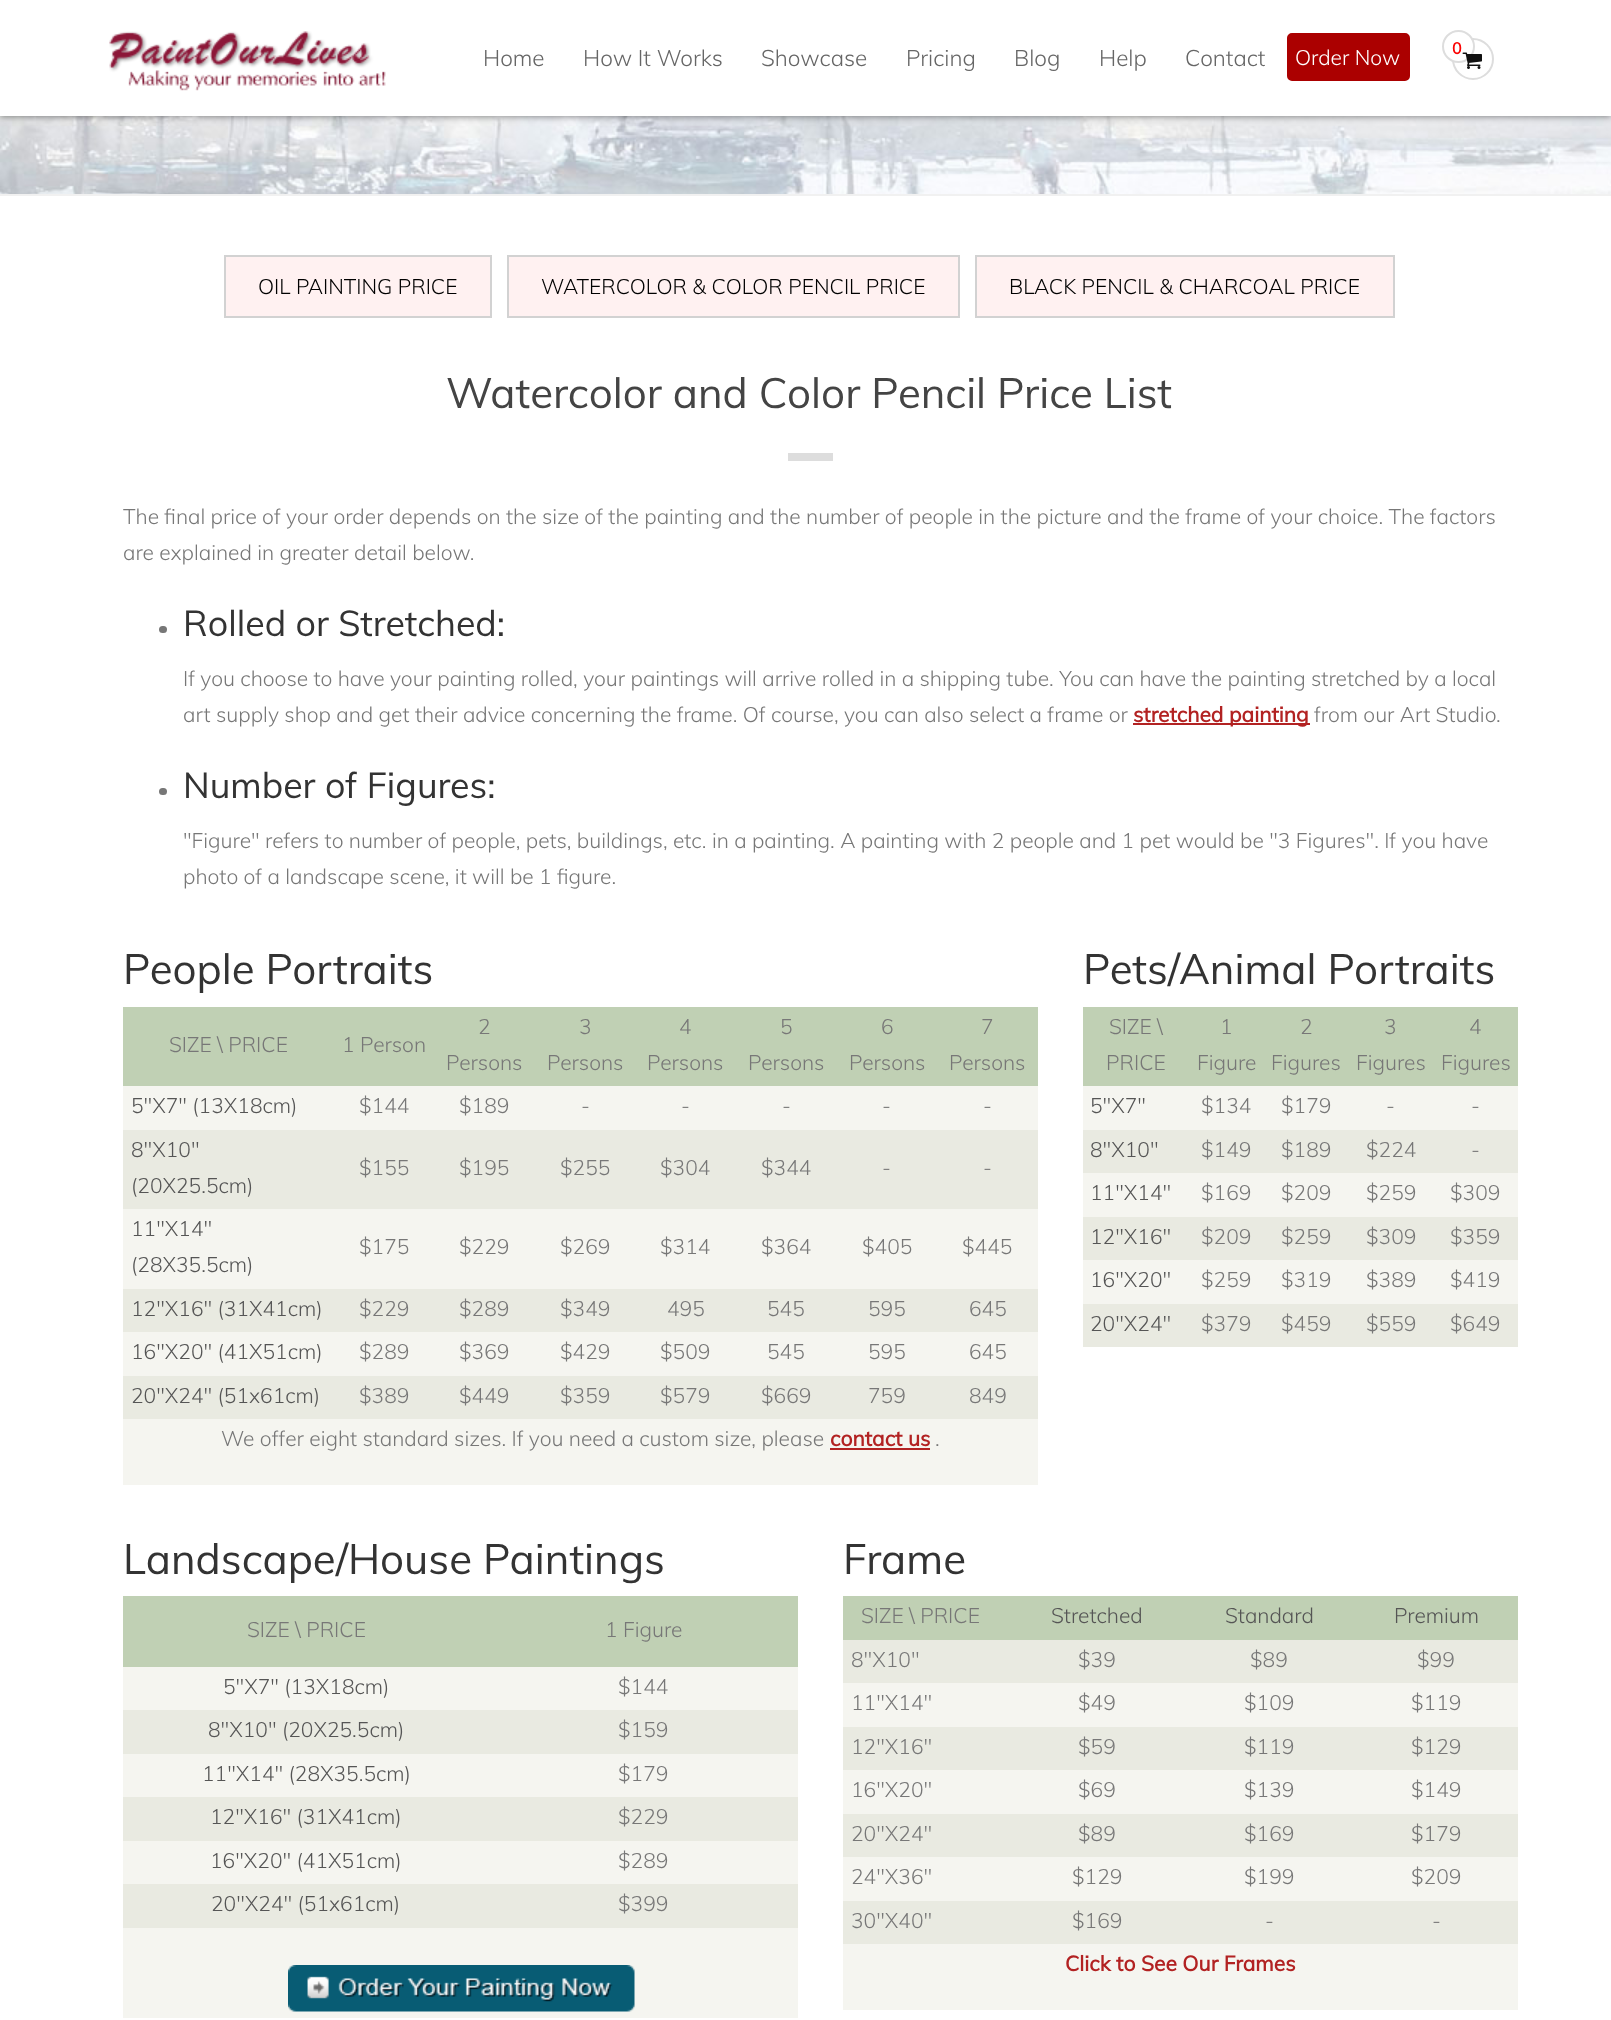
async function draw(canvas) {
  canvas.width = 1611
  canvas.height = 2020
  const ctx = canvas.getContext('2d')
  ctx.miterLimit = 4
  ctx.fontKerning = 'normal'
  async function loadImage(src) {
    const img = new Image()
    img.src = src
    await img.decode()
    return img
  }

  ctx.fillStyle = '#fff'
  ctx.fillRect(0, 0, 1611, 2020)
  ctx.drawImage(await loadImage('image2.png'), 0, 116, 1611, 78)
  ctx.fillStyle = '#00000069'
  ctx.filter = 'blur(3px)'
  ctx.beginPath()
  ctx.rect(0, 2, 1611, 115)
  ctx.fill()
  ctx.filter = 'none'
  ctx.fillStyle = '#fff'
  ctx.fillRect(0, 0, 1611, 116)
  ctx.drawImage(await loadImage('image0.png'), 109, 31, 277, 60)
  ctx.font = '300 22.5px Muli'
  ctx.fillStyle = '#666'
  ctx.fillText('Home', 483, 66)
  ctx.fillText('How It Works', 583, 66)
  ctx.fillText('Showcase', 761, 66)
  ctx.fillText('Pricing', 906, 66)
  ctx.fillText('Blog', 1014, 66)
  ctx.fillText('Help', 1099, 66)
  ctx.fillText('Contact', 1185, 66)
  ctx.fillStyle = '#ab0000'
  ctx.beginPath()
  ctx.roundRect(1288, 34, 121, 46, 4)
  ctx.fill()
  ctx.strokeStyle = '#ab0000'
  ctx.lineWidth = 2
  ctx.stroke()
  ctx.font = '300 21px Muli'
  ctx.fillStyle = '#fff'
  ctx.fillText('Order Now', 1295, 65)
  ctx.beginPath()
  ctx.arc(1473, 59, 20, 0, 2 * Math.PI)
  ctx.strokeStyle = '#ddd'
  ctx.stroke()
  ctx.beginPath()
  ctx.arc(1458.5, 46.5, 15.5, 0, 2 * Math.PI)
  ctx.fill()
  ctx.stroke()
  ctx.font = 'bold 16px Muli'
  ctx.fillStyle = '#fb0202'
  ctx.fillText('0', 1452, 54)
  ctx.drawImage(await loadImage('image1.png'), 1462, 52, 20, 17)
  ctx.fillStyle = '#f1f1f1'
  ctx.fillRect(0, 194, 1611, 2)
  ctx.fillStyle = '#fff1f1'
  ctx.beginPath()
  ctx.rect(225, 256, 266, 61)
  ctx.fill()
  ctx.strokeStyle = '#d2d2d2'
  ctx.stroke()
  ctx.font = '300 21px Muli'
  ctx.fillStyle = '#000'
  ctx.fillText('OIL PAINTING PRICE', 258, 294)
  ctx.fillStyle = '#fff1f1'
  ctx.beginPath()
  ctx.rect(508, 256, 451, 61)
  ctx.fill()
  ctx.stroke()
  ctx.fillStyle = '#000'
  ctx.fillText('WATERCOLOR & COLOR PENCIL PRICE', 541, 294)
  ctx.fillStyle = '#fff1f1'
  ctx.beginPath()
  ctx.rect(976, 256, 418, 61)
  ctx.fill()
  ctx.stroke()
  ctx.fillStyle = '#000'
  ctx.fillText('BLACK PENCIL & CHARCOAL PRICE', 1009, 294)
  ctx.font = '42px Muli'
  ctx.fillStyle = '#444'
  ctx.fillText('Watercolor and Color Pencil Price List', 446, 408)
  ctx.fillStyle = '#ddd'
  ctx.fillRect(788, 453, 45, 8)
  ctx.font = '300 21px Muli'
  ctx.fillStyle = '#777'
  ctx.fillText('The final price of your order depends on the size of the painting and the number of people in the picture and the frame of your choice. The factors', 123, 524)
  ctx.fillText('are explained in greater detail below.', 123, 560)
  ctx.beginPath()
  ctx.roundRect(159, 626, 8, 7, 3.5)
  ctx.fill()
  ctx.font = '35.75px Muli'
  ctx.fillStyle = '#333'
  ctx.fillText('Rolled or Stretched:', 183, 636)
  ctx.font = '300 21px Muli'
  ctx.fillStyle = '#777'
  ctx.fillText('If you choose to have your painting rolled, your paintings will arrive rolled in a shipping tube. You can have the painting stretched by a local', 183, 686)
  ctx.fillText('art supply shop and get their advice concerning the frame. Of course, you can also select a frame or', 183, 722)
  ctx.fillStyle = '#b22222'
  ctx.fillRect(1133, 723, 177, 2)
  ctx.font = 'bold 21px Muli'
  ctx.fillText('stretched painting', 1133, 722)
  ctx.font = '300 21px Muli'
  ctx.fillStyle = '#777'
  ctx.fillText('from our Art Studio.', 1314, 722)
  ctx.beginPath()
  ctx.roundRect(159, 788, 8, 7, 3.5)
  ctx.fill()
  ctx.font = '35.75px Muli'
  ctx.fillStyle = '#333'
  ctx.fillText('Number of Figures:', 183, 798)
  ctx.font = '300 21px Muli'
  ctx.fillStyle = '#777'
  ctx.fillText('"Figure" refers to number of people, pets, buildings, etc. in a painting. A painting with 2 people and 1 pet would be "3 Figures". If you have', 183, 848)
  ctx.fillText('photo of a landscape scene, it will be 1 figure.', 183, 884)
  ctx.font = '42px Muli'
  ctx.fillStyle = '#333'
  ctx.fillText('People Portraits', 123, 984)
  ctx.fillStyle = '#c0d0b4'
  ctx.fillRect(123, 1007, 915, 79)
  ctx.font = '300 21px Muli'
  ctx.fillStyle = '#777'
  ctx.fillText('SIZE \\ PRICE', 169, 1052)
  ctx.fillText('1 Person', 342, 1052)
  ctx.fillText('2', 478, 1034)
  ctx.fillText('Persons', 446, 1070)
  ctx.fillText('3', 579, 1034)
  ctx.fillText('Persons', 547, 1070)
  ctx.fillText('4', 679, 1034)
  ctx.fillText('Persons', 647, 1070)
  ctx.fillText('5', 780, 1034)
  ctx.fillText('Persons', 748, 1070)
  ctx.fillText('6', 881, 1034)
  ctx.fillText('Persons', 849, 1070)
  ctx.fillText('7', 981, 1034)
  ctx.fillText('Persons', 949, 1070)
  ctx.fillStyle = '#f5f5f0'
  ctx.fillRect(123, 1086, 915, 44)
  ctx.fillStyle = '#555'
  ctx.fillText('5"X7" (13X18cm)', 131, 1113)
  ctx.fillStyle = '#777'
  ctx.fillText('$144', 359, 1113)
  ctx.fillText('$189', 459, 1113)
  ctx.fillText('-', 581, 1113)
  ctx.fillText('-', 681, 1113)
  ctx.fillText('-', 782, 1113)
  ctx.fillText('-', 882, 1113)
  ctx.fillText('-', 983, 1113)
  ctx.fillStyle = '#e9eae1'
  ctx.fillRect(123, 1130, 915, 79)
  ctx.fillStyle = '#555'
  ctx.fillText('8"X10"', 131, 1157)
  ctx.fillText('(20X25.5cm)', 131, 1193)
  ctx.fillStyle = '#777'
  ctx.fillText('$155', 359, 1175)
  ctx.fillText('$195', 459, 1175)
  ctx.fillText('$255', 560, 1175)
  ctx.fillText('$304', 660, 1175)
  ctx.fillText('$344', 761, 1175)
  ctx.fillText('-', 882, 1175)
  ctx.fillText('-', 983, 1175)
  ctx.fillStyle = '#f5f5f0'
  ctx.fillRect(123, 1209, 915, 80)
  ctx.fillStyle = '#555'
  ctx.fillText('11"X14"', 131, 1236)
  ctx.fillText('(28X35.5cm)', 131, 1272)
  ctx.fillStyle = '#777'
  ctx.fillText('$175', 359, 1254)
  ctx.fillText('$229', 459, 1254)
  ctx.fillText('$269', 560, 1254)
  ctx.fillText('$314', 660, 1254)
  ctx.fillText('$364', 761, 1254)
  ctx.fillText('$405', 862, 1254)
  ctx.fillText('$445', 962, 1254)
  ctx.fillStyle = '#e9eae1'
  ctx.fillRect(123, 1289, 915, 43)
  ctx.fillStyle = '#555'
  ctx.fillText('12"X16" (31X41cm)', 131, 1316)
  ctx.fillStyle = '#777'
  ctx.fillText('$229', 359, 1316)
  ctx.fillText('$289', 459, 1316)
  ctx.fillText('$349', 560, 1316)
  ctx.fillText('495', 667, 1316)
  ctx.fillText('545', 767, 1316)
  ctx.fillText('595', 868, 1316)
  ctx.fillText('645', 969, 1316)
  ctx.fillStyle = '#f5f5f0'
  ctx.fillRect(123, 1332, 915, 44)
  ctx.fillStyle = '#555'
  ctx.fillText('16"X20" (41X51cm)', 131, 1359)
  ctx.fillStyle = '#777'
  ctx.fillText('$289', 359, 1359)
  ctx.fillText('$369', 459, 1359)
  ctx.fillText('$429', 560, 1359)
  ctx.fillText('$509', 660, 1359)
  ctx.fillText('545', 767, 1359)
  ctx.fillText('595', 868, 1359)
  ctx.fillText('645', 969, 1359)
  ctx.fillStyle = '#e9eae1'
  ctx.fillRect(123, 1376, 915, 43)
  ctx.fillStyle = '#555'
  ctx.fillText('20"X24" (51x61cm)', 131, 1403)
  ctx.fillStyle = '#777'
  ctx.fillText('$389', 359, 1403)
  ctx.fillText('$449', 459, 1403)
  ctx.fillText('$359', 560, 1403)
  ctx.fillText('$579', 660, 1403)
  ctx.fillText('$669', 761, 1403)
  ctx.fillText('759', 868, 1403)
  ctx.fillText('849', 969, 1403)
  ctx.fillStyle = '#f5f5f0'
  ctx.fillRect(123, 1419, 915, 66)
  ctx.fillStyle = '#777'
  ctx.fillText('We offer eight standard sizes. If you need a custom size, please', 221, 1446)
  ctx.font = 'bold 21px Muli'
  ctx.fillStyle = '#b22222'
  ctx.fillText('contact us', 830, 1446)
  ctx.fillRect(830, 1448, 100, 2)
  ctx.font = '300 21px Muli'
  ctx.fillStyle = '#777'
  ctx.fillText('.', 935, 1446)
  ctx.font = '42px Muli'
  ctx.fillStyle = '#333'
  ctx.fillText('Pets/Animal Portraits', 1083, 984)
  ctx.fillStyle = '#c0d0b4'
  ctx.fillRect(1083, 1007, 435, 79)
  ctx.font = '300 21px Muli'
  ctx.fillStyle = '#777'
  ctx.fillText('SIZE \\', 1109, 1034)
  ctx.fillText('PRICE', 1106, 1070)
  ctx.fillText('1', 1220, 1034)
  ctx.fillText('Figure', 1197, 1070)
  ctx.fillText('2', 1300, 1034)
  ctx.fillText('Figures', 1271, 1070)
  ctx.fillText('3', 1384, 1034)
  ctx.fillText('Figures', 1356, 1070)
  ctx.fillText('4', 1469, 1034)
  ctx.fillText('Figures', 1441, 1070)
  ctx.fillStyle = '#f5f5f0'
  ctx.fillRect(1083, 1086, 435, 44)
  ctx.fillStyle = '#555'
  ctx.fillText('5"X7"', 1090, 1113)
  ctx.fillStyle = '#777'
  ctx.fillText('$134', 1201, 1113)
  ctx.fillText('$179', 1281, 1113)
  ctx.fillText('-', 1386, 1113)
  ctx.fillText('-', 1471, 1113)
  ctx.fillStyle = '#e9eae1'
  ctx.fillRect(1083, 1130, 435, 43)
  ctx.fillStyle = '#555'
  ctx.fillText('8"X10"', 1090, 1157)
  ctx.fillStyle = '#777'
  ctx.fillText('$149', 1201, 1157)
  ctx.fillText('$189', 1281, 1157)
  ctx.fillText('$224', 1366, 1157)
  ctx.fillText('-', 1471, 1157)
  ctx.fillStyle = '#f5f5f0'
  ctx.fillRect(1083, 1173, 435, 44)
  ctx.fillStyle = '#555'
  ctx.fillText('11"X14"', 1090, 1200)
  ctx.fillStyle = '#777'
  ctx.fillText('$169', 1201, 1200)
  ctx.fillText('$209', 1281, 1200)
  ctx.fillText('$259', 1366, 1200)
  ctx.fillText('$309', 1450, 1200)
  ctx.fillStyle = '#e9eae1'
  ctx.fillRect(1083, 1217, 435, 43)
  ctx.fillStyle = '#555'
  ctx.fillText('12"X16"', 1090, 1244)
  ctx.fillStyle = '#777'
  ctx.fillText('$209', 1201, 1244)
  ctx.fillText('$259', 1281, 1244)
  ctx.fillText('$309', 1366, 1244)
  ctx.fillText('$359', 1450, 1244)
  ctx.fillStyle = '#f5f5f0'
  ctx.fillRect(1083, 1260, 435, 44)
  ctx.fillStyle = '#555'
  ctx.fillText('16"X20"', 1090, 1287)
  ctx.fillStyle = '#777'
  ctx.fillText('$259', 1201, 1287)
  ctx.fillText('$319', 1281, 1287)
  ctx.fillText('$389', 1366, 1287)
  ctx.fillText('$419', 1450, 1287)
  ctx.fillStyle = '#e9eae1'
  ctx.fillRect(1083, 1304, 435, 43)
  ctx.fillStyle = '#555'
  ctx.fillText('20"X24"', 1090, 1331)
  ctx.fillStyle = '#777'
  ctx.fillText('$379', 1201, 1331)
  ctx.fillText('$459', 1281, 1331)
  ctx.fillText('$559', 1366, 1331)
  ctx.fillText('$649', 1450, 1331)
  ctx.font = '42px Muli'
  ctx.fillStyle = '#333'
  ctx.fillText('Landscape/House Paintings', 123, 1574)
  ctx.fillStyle = '#c0d0b4'
  ctx.fillRect(123, 1596, 675, 71)
  ctx.font = '300 21px Muli'
  ctx.fillStyle = '#777'
  ctx.fillText('SIZE \\ PRICE', 247, 1637)
  ctx.fillText('1 Figure', 605, 1637)
  ctx.fillStyle = '#f5f5f0'
  ctx.fillRect(123, 1667, 675, 43)
  ctx.fillStyle = '#555'
  ctx.fillText('5"X7" (13X18cm)', 223, 1694)
  ctx.fillStyle = '#777'
  ctx.fillText('$144', 618, 1694)
  ctx.fillStyle = '#e9eae1'
  ctx.fillRect(123, 1710, 675, 44)
  ctx.fillStyle = '#555'
  ctx.fillText('8"X10" (20X25.5cm)', 208, 1737)
  ctx.fillStyle = '#777'
  ctx.fillText('$159', 618, 1737)
  ctx.fillStyle = '#f5f5f0'
  ctx.fillRect(123, 1754, 675, 43)
  ctx.fillStyle = '#555'
  ctx.fillText('11"X14" (28X35.5cm)', 202, 1781)
  ctx.fillStyle = '#777'
  ctx.fillText('$179', 618, 1781)
  ctx.fillStyle = '#e9eae1'
  ctx.fillRect(123, 1797, 675, 44)
  ctx.fillStyle = '#555'
  ctx.fillText('12"X16" (31X41cm)', 210, 1824)
  ctx.fillStyle = '#777'
  ctx.fillText('$229', 618, 1824)
  ctx.fillStyle = '#f5f5f0'
  ctx.fillRect(123, 1841, 675, 43)
  ctx.fillStyle = '#555'
  ctx.fillText('16"X20" (41X51cm)', 210, 1868)
  ctx.fillStyle = '#777'
  ctx.fillText('$289', 618, 1868)
  ctx.fillStyle = '#e9eae1'
  ctx.fillRect(123, 1884, 675, 44)
  ctx.fillStyle = '#555'
  ctx.fillText('20"X24" (51x61cm)', 211, 1911)
  ctx.fillStyle = '#777'
  ctx.fillText('$399', 618, 1911)
  ctx.fillStyle = '#f5f5f0'
  ctx.fillRect(123, 1928, 675, 90)
  ctx.drawImage(await loadImage('image3.png'), 288, 1965, 347, 47)
  ctx.font = '42px Muli'
  ctx.fillStyle = '#333'
  ctx.fillText('Frame', 843, 1574)
  ctx.fillStyle = '#c0d0b4'
  ctx.fillRect(843, 1596, 675, 44)
  ctx.font = '300 21px Muli'
  ctx.fillStyle = '#777'
  ctx.fillText('SIZE \\ PRICE', 861, 1623)
  ctx.fillStyle = '#555'
  ctx.fillText('Stretched', 1051, 1623)
  ctx.fillText('Standard', 1225, 1623)
  ctx.fillText('Premium', 1394, 1623)
  ctx.fillStyle = '#e9eae1'
  ctx.fillRect(843, 1640, 675, 43)
  ctx.fillStyle = '#777'
  ctx.fillText('8"X10"', 851, 1667)
  ctx.fillText('$39', 1078, 1667)
  ctx.fillText('$89', 1250, 1667)
  ctx.fillText('$99', 1417, 1667)
  ctx.fillStyle = '#f5f5f0'
  ctx.fillRect(843, 1683, 675, 44)
  ctx.fillStyle = '#777'
  ctx.fillText('11"X14"', 851, 1710)
  ctx.fillText('$49', 1078, 1710)
  ctx.fillText('$109', 1244, 1710)
  ctx.fillText('$119', 1411, 1710)
  ctx.fillStyle = '#e9eae1'
  ctx.fillRect(843, 1727, 675, 43)
  ctx.fillStyle = '#777'
  ctx.fillText('12"X16"', 851, 1754)
  ctx.fillText('$59', 1078, 1754)
  ctx.fillText('$119', 1244, 1754)
  ctx.fillText('$129', 1411, 1754)
  ctx.fillStyle = '#f5f5f0'
  ctx.fillRect(843, 1770, 675, 44)
  ctx.fillStyle = '#777'
  ctx.fillText('16"X20"', 851, 1797)
  ctx.fillText('$69', 1078, 1797)
  ctx.fillText('$139', 1244, 1797)
  ctx.fillText('$149', 1411, 1797)
  ctx.fillStyle = '#e9eae1'
  ctx.fillRect(843, 1814, 675, 43)
  ctx.fillStyle = '#777'
  ctx.fillText('20"X24"', 851, 1841)
  ctx.fillText('$89', 1078, 1841)
  ctx.fillText('$169', 1244, 1841)
  ctx.fillText('$179', 1411, 1841)
  ctx.fillStyle = '#f5f5f0'
  ctx.fillRect(843, 1857, 675, 44)
  ctx.fillStyle = '#777'
  ctx.fillText('24"X36"', 851, 1884)
  ctx.fillText('$129', 1072, 1884)
  ctx.fillText('$199', 1244, 1884)
  ctx.fillText('$209', 1411, 1884)
  ctx.fillStyle = '#e9eae1'
  ctx.fillRect(843, 1901, 675, 43)
  ctx.fillStyle = '#777'
  ctx.fillText('30"X40"', 851, 1928)
  ctx.fillText('$169', 1072, 1928)
  ctx.fillText('-', 1265, 1928)
  ctx.fillText('-', 1432, 1928)
  ctx.fillStyle = '#f5f5f0'
  ctx.fillRect(843, 1944, 675, 66)
  ctx.font = 'bold 21px Muli'
  ctx.fillStyle = '#b22222'
  ctx.fillText('Click to See Our Frames', 1065, 1971)
}

draw(document.querySelector('canvas'))
